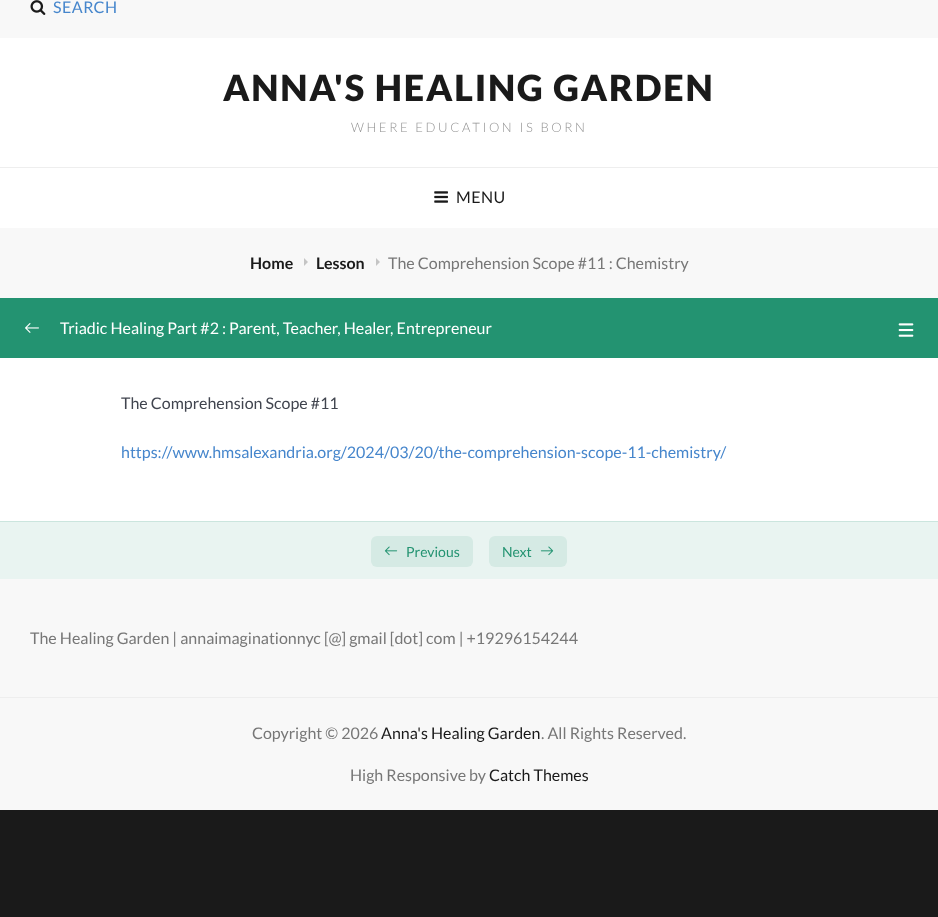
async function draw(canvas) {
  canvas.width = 938
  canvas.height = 917
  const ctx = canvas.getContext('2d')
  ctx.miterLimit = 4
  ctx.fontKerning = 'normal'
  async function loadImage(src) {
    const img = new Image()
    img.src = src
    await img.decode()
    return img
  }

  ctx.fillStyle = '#1a1a1a'
  ctx.fillRect(0, 0, 938, 917)
  ctx.fillStyle = '#fff'
  ctx.fillRect(0, 38, 938, 483)
  ctx.fillStyle = '#f8f8f8'
  ctx.fillRect(0, 0, 938, 38)
  ctx.drawImage(await loadImage('image0.png'), 30, 0, 16, 15)
  ctx.letterSpacing = '0.5px'
  ctx.font = '16px Lato'
  ctx.fillStyle = '#4686cc'
  ctx.fillText('SEARCH', 53, 13)
  ctx.letterSpacing = '1.8px'
  ctx.font = '900 36px Lato'
  ctx.fillStyle = '#1a1a1a'
  ctx.fillText('ANNA\'S HEALING GARDEN', 223, 101)
  ctx.letterSpacing = '2.6px'
  ctx.font = '300 13px Lato'
  ctx.fillStyle = '#919191'
  ctx.fillText('WHERE EDUCATION IS BORN', 351, 132)
  ctx.fillStyle = '#eee'
  ctx.fillRect(0, 167, 938, 1)
  ctx.drawImage(await loadImage('image1.png'), 434, 191, 14, 12)
  ctx.letterSpacing = '0.5px'
  ctx.font = '16px Lato'
  ctx.fillStyle = '#1a1a1a'
  ctx.fillText('MENU', 456, 203)
  ctx.fillStyle = '#f8f8f8'
  ctx.fillRect(0, 228, 938, 70)
  ctx.letterSpacing = '0px'
  ctx.font = 'bold 16px Lato'
  ctx.fillStyle = '#1a1a1a'
  ctx.fillText('Home', 250, 269)
  ctx.fillStyle = '#c5c5c5'
  ctx.beginPath()
  ctx.moveTo(304, 266)
  ctx.lineTo(304, 258)
  ctx.lineTo(308, 262)
  ctx.closePath()
  ctx.fill()
  ctx.fillStyle = '#1a1a1a'
  ctx.fillText('Lesson', 316, 269)
  ctx.fillStyle = '#c5c5c5'
  ctx.beginPath()
  ctx.moveTo(376, 266)
  ctx.lineTo(376, 258)
  ctx.lineTo(380, 262)
  ctx.closePath()
  ctx.fill()
  ctx.font = '16px Lato'
  ctx.fillStyle = '#777'
  ctx.fillText('The Comprehension Scope #11 : Chemistry', 388, 269)
  ctx.fillStyle = '#239371'
  ctx.fillRect(0, 298, 938, 60)
  ctx.drawImage(await loadImage('image2.png'), 25, 323, 14, 10)
  ctx.fillStyle = '#fff'
  ctx.fillText('Triadic Healing Part #2 : Parent, Teacher, Healer, Entrepreneur', 60, 334)
  ctx.drawImage(await loadImage('image3.png'), 898, 323, 16, 14)
  ctx.fillStyle = '#41454f'
  ctx.fillText('The Comprehension Scope #11', 121, 409)
  ctx.fillStyle = '#4686cc'
  ctx.fillText('https://www.hmsalexandria.org/2024/03/20/the-comprehension-scope-11-chemistry/', 121, 458)
  ctx.fillStyle = '#e9f4f1'
  ctx.fillRect(0, 522, 938, 57)
  ctx.fillStyle = '#cbe5de'
  ctx.fillRect(0, 521, 938, 1)
  ctx.fillStyle = '#d5eae4'
  ctx.beginPath()
  ctx.roundRect(371, 536, 102, 31, 6)
  ctx.fill()
  ctx.drawImage(await loadImage('image4.png'), 384, 546, 14, 10)
  ctx.font = '14px Lato'
  ctx.fillStyle = '#239371'
  ctx.fillText('Previous', 406, 557)
  ctx.fillStyle = '#d5eae4'
  ctx.beginPath()
  ctx.roundRect(489, 536, 78, 31, 6)
  ctx.fill()
  ctx.fillStyle = '#239371'
  ctx.fillText('Next', 502, 557)
  ctx.drawImage(await loadImage('image5.png'), 540, 546, 14, 10)
  ctx.fillStyle = '#f8f8f8'
  ctx.fillRect(0, 579, 938, 231)
  ctx.font = '16px Lato'
  ctx.fillStyle = '#777'
  ctx.fillText('The Healing Garden | annaimaginationnyc [@] gmail [dot] com | +19296154244', 30, 644)
  ctx.fillStyle = '#eee'
  ctx.fillRect(0, 697, 938, 1)
  ctx.fillStyle = '#777'
  ctx.fillText('Copyright © 2026', 252, 739)
  ctx.fillStyle = '#1a1a1a'
  ctx.fillText('Anna\'s Healing Garden', 381, 739)
  ctx.fillStyle = '#777'
  ctx.fillText('. All Rights Reserved.', 541, 739)
  ctx.fillText('High Responsive by', 350, 781)
  ctx.fillStyle = '#1a1a1a'
  ctx.fillText('Catch Themes', 489, 781)
}

draw(document.querySelector('canvas'))
